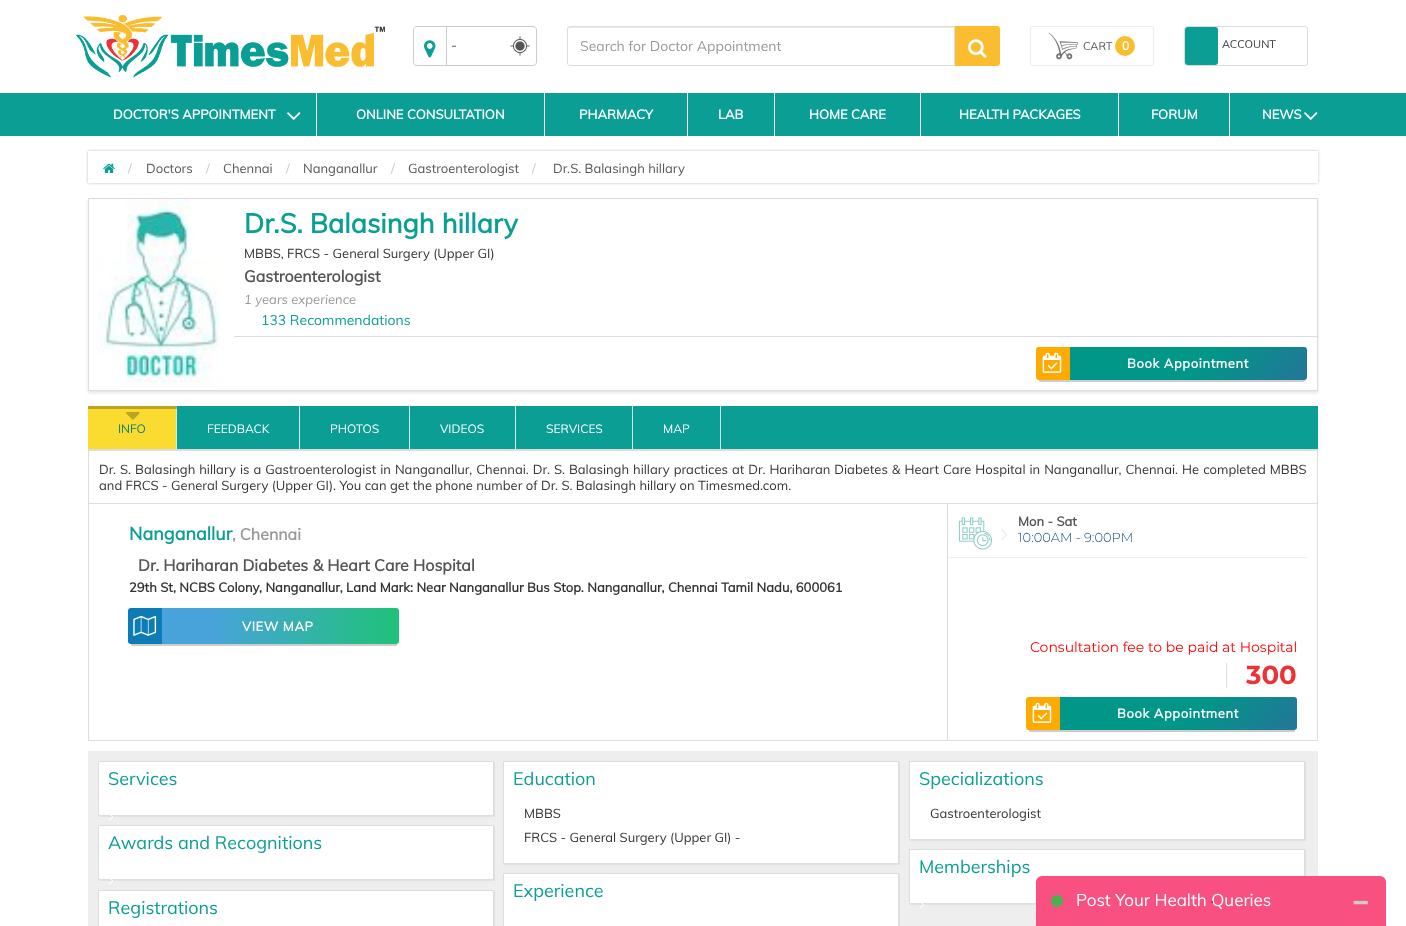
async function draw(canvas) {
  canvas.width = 1406
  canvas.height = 926
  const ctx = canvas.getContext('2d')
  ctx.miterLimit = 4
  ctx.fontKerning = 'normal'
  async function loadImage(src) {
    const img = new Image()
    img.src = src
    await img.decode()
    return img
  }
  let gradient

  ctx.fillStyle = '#fff'
  ctx.fillRect(0, 0, 1406, 926)
  ctx.drawImage(await loadImage('image0.png'), 76, 15, 309, 63)
  ctx.fillStyle = '#ccc'
  ctx.beginPath()
  ctx.moveTo(417, 26)
  ctx.lineTo(446, 26)
  ctx.lineTo(446, 66)
  ctx.lineTo(417, 66)
  ctx.bezierCurveTo(415, 66, 413, 64, 413, 62)
  ctx.lineTo(413, 30)
  ctx.bezierCurveTo(413, 28, 415, 26, 417, 26)
  ctx.closePath()
  ctx.moveTo(417, 27)
  ctx.lineTo(446, 27)
  ctx.lineTo(446, 65)
  ctx.lineTo(417, 65)
  ctx.bezierCurveTo(415, 65, 414, 64, 414, 62)
  ctx.lineTo(414, 30)
  ctx.bezierCurveTo(414, 28, 415, 27, 417, 27)
  ctx.closePath()
  ctx.fill('evenodd')
  ctx.drawImage(await loadImage('image1.png'), 424, 40, 12, 18)
  ctx.fillRect(446, 26, 58, 1)
  ctx.fillRect(446, 65, 58, 1)
  ctx.fillRect(446, 26, 1, 40)
  ctx.font = '14px Muli'
  ctx.fillStyle = '#555'
  ctx.fillText('-', 451, 50)
  ctx.fillStyle = '#ccc'
  ctx.beginPath()
  ctx.moveTo(504, 26)
  ctx.lineTo(533, 26)
  ctx.bezierCurveTo(535, 26, 537, 28, 537, 30)
  ctx.lineTo(537, 62)
  ctx.bezierCurveTo(537, 64, 535, 66, 533, 66)
  ctx.lineTo(504, 66)
  ctx.closePath()
  ctx.moveTo(504, 27)
  ctx.lineTo(533, 27)
  ctx.bezierCurveTo(535, 27, 536, 28, 536, 30)
  ctx.lineTo(536, 62)
  ctx.bezierCurveTo(536, 64, 535, 65, 533, 65)
  ctx.lineTo(504, 65)
  ctx.closePath()
  ctx.fill('evenodd')
  ctx.drawImage(await loadImage('image2.png'), 510, 36, 20, 20)
  ctx.fillStyle = '#ececec'
  ctx.beginPath()
  ctx.moveTo(570, 28)
  ctx.lineTo(954, 28)
  ctx.lineTo(954, 27)
  ctx.lineTo(570, 27)
  ctx.bezierCurveTo(568, 27, 568, 29, 568, 30)
  ctx.bezierCurveTo(568, 29, 569, 28, 570, 28)
  ctx.closePath()
  ctx.fill()
  ctx.beginPath()
  ctx.roundRect(567.5, 26.5, 387, 39, [2.5, 0, 0, 2.5])
  ctx.strokeStyle = '#ddd'
  ctx.stroke()
  ctx.fillStyle = '#999'
  ctx.fillText('Search for Doctor Appointment', 580, 51)
  ctx.fillStyle = '#fabd2f'
  ctx.beginPath()
  ctx.roundRect(955, 26, 45, 40, [0, 3, 3, 0])
  ctx.fill()
  ctx.drawImage(await loadImage('image3.png'), 968, 39, 19, 19)
  ctx.beginPath()
  ctx.roundRect(1030.5, 26.5, 123, 39, 2.5)
  ctx.strokeStyle = '#eee'
  ctx.stroke()
  ctx.drawImage(await loadImage('image4.png'), 1048, 32, 30, 28)
  ctx.font = '11px Muli'
  ctx.fillStyle = '#555'
  ctx.fillText('CART', 1083, 50)
  ctx.fillStyle = '#fabd2f'
  ctx.beginPath()
  ctx.arc(1125, 46, 10, 0, 2 * Math.PI)
  ctx.fill()
  ctx.font = 'bold 12px Muli'
  ctx.fillStyle = '#fff'
  ctx.fillText('0', 1122, 50)
  ctx.beginPath()
  ctx.roundRect(1184.5, 26.5, 123, 39, 2.5)
  ctx.strokeStyle = '#ddd'
  ctx.stroke()
  ctx.fillStyle = '#0b9e94'
  ctx.beginPath()
  ctx.roundRect(1185, 27, 33, 38, 3)
  ctx.fill()
  ctx.font = '11px Muli'
  ctx.fillStyle = '#333'
  ctx.fillText('ACCOUNT', 1222, 48)
  ctx.fillStyle = '#0b9e94'
  ctx.fillRect(0, 93, 1406, 43)
  ctx.font = 'bold 13px Muli'
  ctx.fillStyle = '#fff'
  ctx.fillText('DOCTOR\'S APPOINTMENT', 113, 119)
  ctx.drawImage(await loadImage('image5.png'), 287, 112, 14, 8)
  ctx.fillRect(316, 93, 1, 43)
  ctx.fillText('ONLINE CONSULTATION', 356, 119)
  ctx.fillRect(544, 93, 1, 43)
  ctx.fillText('PHARMACY', 579, 119)
  ctx.fillRect(687, 93, 1, 43)
  ctx.fillText('LAB', 718, 119)
  ctx.fillRect(774, 93, 1, 43)
  ctx.fillText('HOME CARE', 809, 119)
  ctx.fillRect(920, 93, 1, 43)
  ctx.fillText('HEALTH PACKAGES', 959, 119)
  ctx.fillRect(1118, 93, 1, 43)
  ctx.fillText('FORUM', 1151, 119)
  ctx.fillRect(1229, 93, 1, 43)
  ctx.fillText('NEWS', 1262, 119)
  ctx.drawImage(await loadImage('image5.png'), 1304, 112, 14, 8)
  ctx.save()
  ctx.beginPath()
  ctx.moveTo(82, 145)
  ctx.lineTo(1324, 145)
  ctx.lineTo(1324, 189)
  ctx.lineTo(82, 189)
  ctx.closePath()
  ctx.moveTo(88, 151)
  ctx.lineTo(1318, 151)
  ctx.lineTo(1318, 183)
  ctx.lineTo(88, 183)
  ctx.closePath()
  ctx.clip('evenodd')
  ctx.fillStyle = '#00000040'
  ctx.filter = 'blur(1.5px)'
  ctx.beginPath()
  ctx.rect(88, 151, 1230, 32)
  ctx.fill()
  ctx.filter = 'none'
  ctx.restore()
  ctx.drawImage(await loadImage('image6.png'), 103, 163, 12, 10)
  ctx.font = '13px Muli'
  ctx.fillStyle = '#ccc'
  ctx.fillText('/', 128, 173)
  ctx.fillStyle = '#555'
  ctx.fillText('Doctors', 146, 173)
  ctx.fillStyle = '#ccc'
  ctx.fillText('/', 206, 173)
  ctx.fillStyle = '#555'
  ctx.fillText('Chennai', 223, 173)
  ctx.fillStyle = '#ccc'
  ctx.fillText('/', 286, 173)
  ctx.fillStyle = '#555'
  ctx.fillText('Nanganallur', 303, 173)
  ctx.fillStyle = '#ccc'
  ctx.fillText('/', 391, 173)
  ctx.fillStyle = '#555'
  ctx.fillText('Gastroenterologist', 408, 173)
  ctx.fillStyle = '#ccc'
  ctx.fillText('/', 532, 173)
  ctx.fillStyle = '#555'
  ctx.fillText('Dr.S. Balasingh hillary', 553, 173)
  ctx.save()
  ctx.beginPath()
  ctx.moveTo(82, 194)
  ctx.lineTo(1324, 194)
  ctx.lineTo(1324, 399)
  ctx.lineTo(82, 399)
  ctx.closePath()
  ctx.moveTo(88, 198)
  ctx.lineTo(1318, 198)
  ctx.lineTo(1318, 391)
  ctx.lineTo(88, 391)
  ctx.closePath()
  ctx.clip('evenodd')
  ctx.fillStyle = '#0000001a'
  ctx.filter = 'blur(1.5px)'
  ctx.beginPath()
  ctx.rect(88, 200, 1230, 193)
  ctx.fill()
  ctx.filter = 'none'
  ctx.restore()
  ctx.strokeRect(88.5, 198.5, 1229, 192)
  ctx.drawImage(await loadImage('image7.png'), 89, 199, 145, 191)
  ctx.font = 'bold 27px Muli'
  ctx.fillStyle = '#0b9e94'
  ctx.fillText('Dr.S. Balasingh hillary', 244, 233)
  ctx.font = '13px Muli'
  ctx.fillStyle = '#333'
  ctx.fillText('MBBS, FRCS - General Surgery (Upper GI)', 244, 258)
  ctx.font = 'bold 16px Muli'
  ctx.fillStyle = '#555'
  ctx.fillText('Gastroenterologist', 244, 282)
  ctx.font = 'italic 13px Muli'
  ctx.fillStyle = '#999'
  ctx.fillText('1 years experience', 244, 304)
  ctx.font = '14px Muli'
  ctx.fillStyle = '#0b9e94'
  ctx.fillText('133 Recommendations', 261, 325)
  ctx.fillStyle = '#ddd'
  ctx.fillRect(234, 336, 1083, 1)
  ctx.fillStyle = '#00000033'
  ctx.filter = 'blur(0.5px)'
  ctx.beginPath()
  ctx.roundRect(1039, 353, 266, 29, 1)
  ctx.fill()
  ctx.filter = 'none'
  gradient = ctx.createLinearGradient(1096, 288, 1248, 439)
  gradient.addColorStop(0.6, '#009688')
  gradient.addColorStop(1, '#257599')
  ctx.fillStyle = gradient
  ctx.beginPath()
  ctx.roundRect(1037, 347, 270, 33, 3)
  ctx.fill()
  ctx.fillStyle = '#fa0'
  ctx.beginPath()
  ctx.roundRect(1036, 347, 34, 33, [3, 0, 0, 3])
  ctx.fill()
  ctx.drawImage(await loadImage('image8.png'), 1042, 352, 20, 21)
  ctx.letterSpacing = '0.6px'
  ctx.font = 'bold 13px Muli'
  ctx.fillStyle = '#fff'
  ctx.fillText('Book Appointment', 1127, 368)
  ctx.fillStyle = '#0b9e94'
  ctx.fillRect(177, 406, 1141, 43)
  ctx.fillStyle = '#ddd'
  ctx.fillRect(88, 449, 1230, 1)
  ctx.fillStyle = '#fadb2f'
  ctx.fillRect(88, 409, 88, 40)
  ctx.drawImage(await loadImage('image9.png'), 126, 412, 14, 8)
  ctx.fillStyle = '#ceecea'
  ctx.fillRect(176, 406, 1, 43)
  ctx.fillStyle = '#9bb1b0'
  ctx.fillRect(176, 406, 1, 3)
  ctx.fillStyle = '#bca423'
  ctx.fillRect(88, 406, 88, 3)
  ctx.letterSpacing = '0px'
  ctx.font = '12px Muli'
  ctx.fillStyle = '#097f77'
  ctx.fillText('INFO', 118, 433)
  ctx.fillStyle = '#ceecea'
  ctx.fillRect(299, 406, 1, 43)
  ctx.fillStyle = '#fff'
  ctx.fillText('FEEDBACK', 207, 433)
  ctx.fillStyle = '#ceecea'
  ctx.fillRect(409, 406, 1, 43)
  ctx.fillStyle = '#fff'
  ctx.fillText('PHOTOS', 330, 433)
  ctx.fillStyle = '#ceecea'
  ctx.fillRect(515, 406, 1, 43)
  ctx.fillStyle = '#fff'
  ctx.fillText('VIDEOS', 440, 433)
  ctx.fillStyle = '#ceecea'
  ctx.fillRect(632, 406, 1, 43)
  ctx.fillStyle = '#fff'
  ctx.fillText('SERVICES', 546, 433)
  ctx.fillStyle = '#ceecea'
  ctx.fillRect(720, 406, 1, 43)
  ctx.fillStyle = '#fff'
  ctx.fillText('MAP', 663, 433)
  ctx.strokeRect(88.5, 450.5, 1229, 53)
  ctx.wordSpacing = '0.6px'
  ctx.font = '13px Muli'
  ctx.fillStyle = '#333'
  ctx.fillText('Dr. S. Balasingh hillary is a Gastroenterologist in Nanganallur, Chennai. Dr. S. Balasingh hillary practices at Dr. Hariharan Diabetes & Heart Care Hospital in Nanganallur, Chennai. He completed MBBS', 99, 474)
  ctx.wordSpacing = '0px'
  ctx.fillText('and FRCS - General Surgery (Upper GI). You can get the phone number of Dr. S. Balasingh hillary on Timesmed.com.', 99, 490)
  ctx.fillStyle = '#ddd'
  ctx.fillRect(1317, 504, 1, 237)
  ctx.fillRect(88, 740, 1230, 1)
  ctx.fillRect(88, 504, 1, 237)
  ctx.font = 'bold 18px Muli'
  ctx.fillStyle = '#0b9e94'
  ctx.fillText('Nanganallur', 129, 540)
  ctx.font = 'bold 16px Muli'
  ctx.fillStyle = '#999'
  ctx.fillText(', Chennai', 232, 540)
  ctx.fillStyle = '#555'
  ctx.fillText('Dr. Hariharan Diabetes & Heart Care Hospital', 138, 571)
  ctx.font = 'bold 13px Muli'
  ctx.fillStyle = '#333'
  ctx.fillText('29th St, NCBS Colony, Nanganallur, Land Mark: Near Nanganallur Bus Stop. Nanganallur, Chennai Tamil Nadu, 600061', 129, 592)
  ctx.fillStyle = '#00000033'
  ctx.filter = 'blur(0.5px)'
  ctx.beginPath()
  ctx.roundRect(131, 614, 266, 32, 1)
  ctx.fill()
  ctx.filter = 'none'
  gradient = ctx.createLinearGradient(129, 626, 399, 626)
  gradient.addColorStop(0.3, '#48a3db')
  gradient.addColorStop(1, '#1fc279')
  ctx.fillStyle = gradient
  ctx.beginPath()
  ctx.roundRect(129, 608, 270, 36, 3)
  ctx.fill()
  ctx.fillStyle = '#0c7bb6'
  ctx.beginPath()
  ctx.roundRect(128, 608, 34, 36, [3, 0, 0, 3])
  ctx.fill()
  ctx.drawImage(await loadImage('image10.png'), 133, 615, 24, 21)
  ctx.letterSpacing = '0.6px'
  ctx.fillStyle = '#fff'
  ctx.fillText('VIEW MAP', 242, 631)
  ctx.fillStyle = '#ddd'
  ctx.fillRect(947, 503, 1, 237)
  ctx.fillStyle = '#eee'
  ctx.fillRect(948, 557, 359, 1)
  ctx.drawImage(await loadImage('image11.png'), 958, 517, 35, 33)
  ctx.drawImage(await loadImage('image12.png'), 1001, 529, 7, 11)
  ctx.letterSpacing = '0px'
  ctx.fillStyle = '#555'
  ctx.fillText('Mon - Sat', 1018, 526)
  ctx.font = '300 13px Montserrat'
  ctx.fillStyle = '#0b4b81'
  ctx.fillText('10:00AM - 9:00PM', 1018, 542)
  ctx.font = '14px Montserrat'
  ctx.fillStyle = '#f00'
  ctx.fillText('Consultation fee to be paid at Hospital', 1030, 652)
  ctx.font = 'bold 26px Montserrat'
  ctx.fillStyle = '#ed3237'
  ctx.fillText('300', 1246, 684)
  ctx.fillStyle = '#ddd'
  ctx.fillRect(1226, 663, 1, 25)
  ctx.fillStyle = '#00000033'
  ctx.filter = 'blur(0.5px)'
  ctx.beginPath()
  ctx.roundRect(1029, 703, 266, 29, 1)
  ctx.fill()
  ctx.filter = 'none'
  gradient = ctx.createLinearGradient(1086, 638, 1238, 789)
  gradient.addColorStop(0.6, '#009688')
  gradient.addColorStop(1, '#257599')
  ctx.fillStyle = gradient
  ctx.beginPath()
  ctx.roundRect(1027, 697, 270, 33, 3)
  ctx.fill()
  ctx.fillStyle = '#fa0'
  ctx.beginPath()
  ctx.roundRect(1026, 697, 34, 33, [3, 0, 0, 3])
  ctx.fill()
  ctx.drawImage(await loadImage('image8.png'), 1032, 702, 20, 21)
  ctx.letterSpacing = '0.6px'
  ctx.font = 'bold 13px Muli'
  ctx.fillStyle = '#fff'
  ctx.fillText('Book Appointment', 1117, 718)
  ctx.fillStyle = '#eee'
  ctx.fillRect(88, 751, 1230, 175)
  ctx.fillStyle = '#0000000d'
  ctx.filter = 'blur(0.5px)'
  ctx.beginPath()
  ctx.rect(99, 762, 396, 55)
  ctx.fill()
  ctx.filter = 'none'
  ctx.fillStyle = '#fff'
  ctx.beginPath()
  ctx.rect(98.5, 761.5, 395, 54)
  ctx.fill()
  ctx.stroke()
  ctx.letterSpacing = '0px'
  ctx.font = '18px Muli'
  ctx.fillStyle = '#0b9e94'
  ctx.fillText('Services', 108, 785)
  ctx.drawImage(await loadImage('image13.png'), 109, 815, 4, 6)
  ctx.fillStyle = '#0000000d'
  ctx.filter = 'blur(0.5px)'
  ctx.beginPath()
  ctx.rect(504, 762, 396, 103)
  ctx.fill()
  ctx.filter = 'none'
  ctx.fillStyle = '#fff'
  ctx.beginPath()
  ctx.rect(503.5, 761.5, 395, 102)
  ctx.fill()
  ctx.stroke()
  ctx.fillStyle = '#0b9e94'
  ctx.fillText('Education', 513, 785)
  ctx.font = '13px Muli'
  ctx.fillStyle = '#333'
  ctx.fillText('MBBS', 524, 818)
  ctx.fillText('FRCS - General Surgery (Upper GI) -', 524, 842)
  ctx.fillStyle = '#0000000d'
  ctx.filter = 'blur(0.5px)'
  ctx.beginPath()
  ctx.rect(910, 762, 396, 79)
  ctx.fill()
  ctx.filter = 'none'
  ctx.fillStyle = '#fff'
  ctx.beginPath()
  ctx.rect(909.5, 761.5, 395, 78)
  ctx.fill()
  ctx.stroke()
  ctx.font = '18px Muli'
  ctx.fillStyle = '#0b9e94'
  ctx.fillText('Specializations', 919, 785)
  ctx.font = '13px Muli'
  ctx.fillStyle = '#333'
  ctx.fillText('Gastroenterologist', 930, 818)
  ctx.fillStyle = '#0000000d'
  ctx.filter = 'blur(0.5px)'
  ctx.beginPath()
  ctx.rect(99, 826, 396, 55)
  ctx.fill()
  ctx.filter = 'none'
  ctx.fillStyle = '#fff'
  ctx.beginPath()
  ctx.rect(98.5, 825.5, 395, 54)
  ctx.fill()
  ctx.stroke()
  ctx.font = '18px Muli'
  ctx.fillStyle = '#0b9e94'
  ctx.fillText('Awards and Recognitions', 108, 849)
  ctx.drawImage(await loadImage('image13.png'), 109, 879, 4, 6)
  ctx.fillStyle = '#0000000d'
  ctx.filter = 'blur(0.5px)'
  ctx.beginPath()
  ctx.rect(910, 850, 396, 55)
  ctx.fill()
  ctx.filter = 'none'
  ctx.fillStyle = '#fff'
  ctx.beginPath()
  ctx.rect(909.5, 849.5, 395, 54)
  ctx.fill()
  ctx.stroke()
  ctx.fillStyle = '#0b9e94'
  ctx.fillText('Memberships', 919, 873)
  ctx.drawImage(await loadImage('image13.png'), 920, 903, 4, 6)
  ctx.fillStyle = '#0000000d'
  ctx.filter = 'blur(0.5px)'
  ctx.beginPath()
  ctx.rect(504, 874, 396, 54)
  ctx.fill()
  ctx.filter = 'none'
  ctx.fillStyle = '#fff'
  ctx.beginPath()
  ctx.rect(503.5, 873.5, 395, 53)
  ctx.fill()
  ctx.stroke()
  ctx.fillStyle = '#0b9e94'
  ctx.fillText('Experience', 513, 897)
  ctx.fillStyle = '#0000000d'
  ctx.filter = 'blur(0.5px)'
  ctx.beginPath()
  ctx.rect(99, 891, 396, 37)
  ctx.fill()
  ctx.filter = 'none'
  ctx.fillStyle = '#fff'
  ctx.beginPath()
  ctx.rect(98.5, 890.5, 395, 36)
  ctx.fill()
  ctx.stroke()
  ctx.fillStyle = '#0b9e94'
  ctx.fillText('Registrations', 108, 914)
  ctx.fillStyle = '#00000040'
  ctx.filter = 'blur(1.5px)'
  ctx.beginPath()
  ctx.rect(1036, 926, 350, 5)
  ctx.fill()
  ctx.filter = 'none'
  ctx.fillStyle = '#f85081'
  ctx.beginPath()
  ctx.roundRect(1036, 876, 350, 50, [6, 6, 0, 0])
  ctx.fill()
  ctx.fillStyle = '#4caf50'
  ctx.beginPath()
  ctx.arc(1057, 901, 6, 0, 2 * Math.PI)
  ctx.fill()
  ctx.font = '17px Muli'
  ctx.fillStyle = '#fff'
  ctx.fillText('Post Your Health Queries', 1076, 906)
  ctx.font = '50px Muli'
  ctx.fillStyle = '#ccc'
  ctx.fillText('-', 1350, 916)
  ctx.fillStyle = '#f00'
  ctx.beginPath()
  ctx.arc(1212, 902, 1, 0, 2 * Math.PI)
  ctx.fill()
}

draw(document.querySelector('canvas'))
